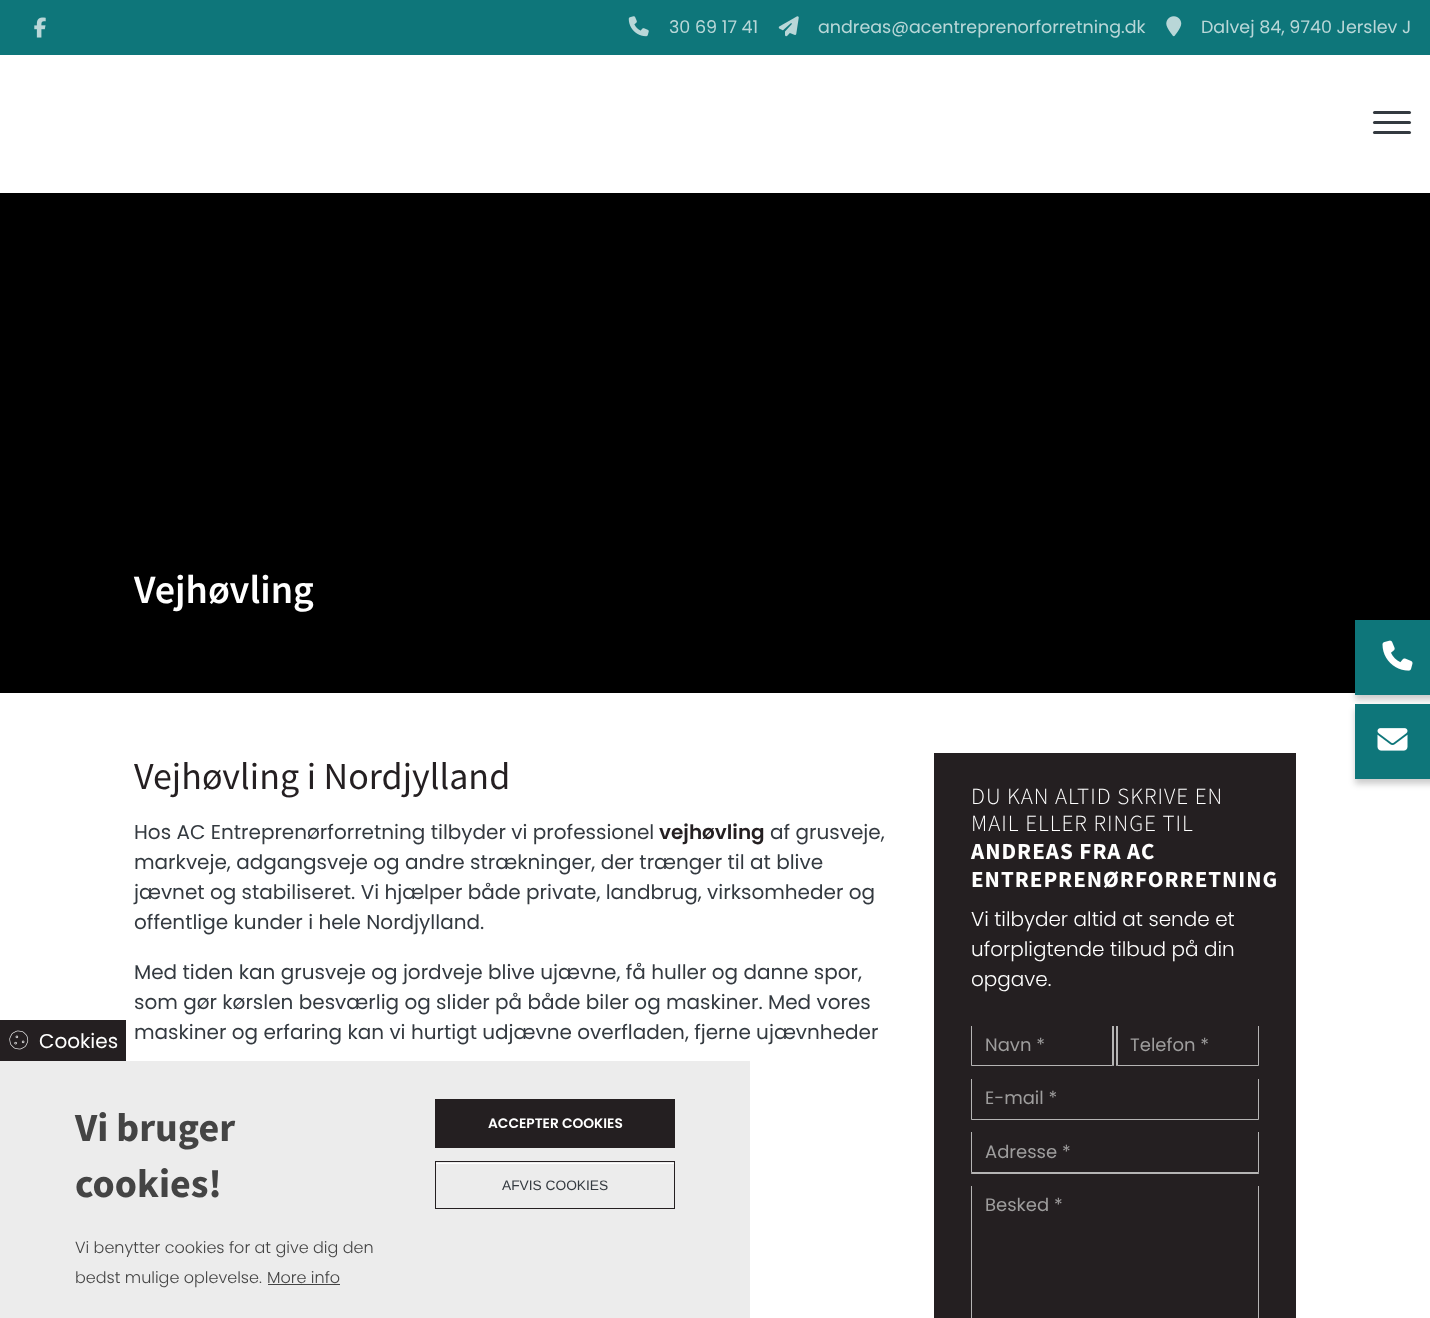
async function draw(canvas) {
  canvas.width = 1430
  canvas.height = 1318
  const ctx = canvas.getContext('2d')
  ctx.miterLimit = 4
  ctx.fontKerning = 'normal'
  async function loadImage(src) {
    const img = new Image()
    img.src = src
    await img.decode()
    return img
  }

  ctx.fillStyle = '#fff'
  ctx.fillRect(0, 0, 1430, 1318)
  ctx.fillStyle = '#0e767a'
  ctx.fillRect(0, 0, 1430, 55)
  ctx.drawImage(await loadImage('image0.png'), 34, 17, 12, 21)
  ctx.drawImage(await loadImage('image1.png'), 628, 16, 21, 21)
  ctx.font = '17.5px Poppins'
  ctx.fillStyle = '#b9d7d8'
  ctx.fillText('30 69 17 41', 669, 33)
  ctx.drawImage(await loadImage('image2.png'), 778, 16, 21, 21)
  ctx.fillText('andreas@acentreprenorforretning.dk', 818, 33)
  ctx.drawImage(await loadImage('image3.png'), 1166, 16, 16, 21)
  ctx.fillText('Dalvej 84, 9740 Jerslev J', 1201, 33)
  ctx.fillStyle = '#343a40'
  ctx.beginPath()
  ctx.roundRect(1373, 121, 38, 3, 1.5)
  ctx.fill()
  ctx.beginPath()
  ctx.roundRect(1373, 111, 38, 3, 1.5)
  ctx.fill()
  ctx.beginPath()
  ctx.roundRect(1373, 131, 38, 3, 1.5)
  ctx.fill()
  ctx.fillStyle = '#000'
  ctx.fillRect(0, 193, 1430, 500)
  ctx.font = '600 40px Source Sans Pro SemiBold'
  ctx.fillStyle = '#fff'
  ctx.fillText('Vejhøvling', 134, 603)
  ctx.fillStyle = '#00000033'
  ctx.filter = 'blur(3px)'
  ctx.beginPath()
  ctx.rect(1355, 625, 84, 75)
  ctx.fill()
  ctx.filter = 'none'
  ctx.fillStyle = '#0e767a'
  ctx.fillRect(1355, 620, 75, 75)
  ctx.drawImage(await loadImage('image4.png'), 1382, 640, 31, 31)
  ctx.fillStyle = '#00000033'
  ctx.filter = 'blur(3px)'
  ctx.beginPath()
  ctx.rect(1355, 709, 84, 75)
  ctx.fill()
  ctx.filter = 'none'
  ctx.fillStyle = '#0e767a'
  ctx.fillRect(1355, 704, 75, 75)
  ctx.drawImage(await loadImage('image5.png'), 1377, 728, 31, 23)
  ctx.font = '38px Source Sans Pro'
  ctx.fillStyle = '#241f21'
  ctx.fillText('Vejhøvling i Nordjylland', 134, 789)
  ctx.font = '20px Poppins'
  ctx.fillStyle = '#343a40'
  ctx.fillText('Hos AC Entreprenørforretning tilbyder vi professionel', 134, 839)
  ctx.font = '600 20px Poppins'
  ctx.fillStyle = '#241f21'
  ctx.fillText('vejhøvling', 659, 839)
  ctx.font = '20px Poppins'
  ctx.fillStyle = '#343a40'
  ctx.fillText('af grusveje,', 770, 839)
  ctx.fillText('markveje, adgangsveje og andre strækninger, der trænger til at blive', 134, 869)
  ctx.fillText('jævnet og stabiliseret. Vi hjælper både private, landbrug, virksomheder og', 134, 899)
  ctx.fillText('offentlige kunder i hele Nordjylland.', 134, 929)
  ctx.fillText('Med tiden kan grusveje og jordveje blive ujævne, få huller og danne spor,', 134, 979)
  ctx.fillText('som gør kørslen besværlig og slider på både biler og maskiner. Med vores', 134, 1009)
  ctx.fillText('maskiner og erfaring kan vi hurtigt udjævne overfladen, fjerne ujævnheder', 134, 1039)
  ctx.fillStyle = '#241f21'
  ctx.fillRect(934, 753, 362, 565)
  ctx.letterSpacing = '1px'
  ctx.font = '300 23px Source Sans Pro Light'
  ctx.fillStyle = '#fff'
  ctx.fillText('DU KAN ALTID SKRIVE EN', 971, 804)
  ctx.fillText('MAIL ELLER RINGE TIL', 971, 831)
  ctx.font = 'bold 23px Source Sans Pro'
  ctx.fillText('ANDREAS FRA AC', 971, 859)
  ctx.fillText('ENTREPRENØRFORRETNING', 971, 887)
  ctx.letterSpacing = '0px'
  ctx.font = '300 20px Poppins'
  ctx.fillText('Vi tilbyder altid at sende et', 971, 926)
  ctx.fillText('uforpligtende tilbud på din', 971, 956)
  ctx.fillText('opgave.', 971, 986)
  ctx.fillStyle = '#b5b4b4'
  ctx.beginPath()
  ctx.moveTo(1114, 1026)
  ctx.lineTo(1114, 1066)
  ctx.lineTo(1112, 1065)
  ctx.lineTo(1112, 1026)
  ctx.closePath()
  ctx.fill()
  ctx.fillStyle = '#dadadacc'
  ctx.beginPath()
  ctx.moveTo(1114, 1066)
  ctx.lineTo(971, 1066)
  ctx.lineTo(972, 1065)
  ctx.lineTo(1112, 1065)
  ctx.closePath()
  ctx.fill()
  ctx.beginPath()
  ctx.moveTo(971, 1066)
  ctx.lineTo(971, 1026)
  ctx.lineTo(972, 1026)
  ctx.lineTo(972, 1065)
  ctx.closePath()
  ctx.fill()
  ctx.font = '18px Poppins'
  ctx.fillStyle = '#9e9d9d'
  ctx.fillText('Navn *', 985, 1051)
  ctx.fillStyle = '#b5b4b4'
  ctx.beginPath()
  ctx.moveTo(1259, 1026)
  ctx.lineTo(1259, 1066)
  ctx.lineTo(1258, 1065)
  ctx.lineTo(1258, 1026)
  ctx.closePath()
  ctx.fill()
  ctx.fillStyle = '#dadadacc'
  ctx.beginPath()
  ctx.moveTo(1259, 1066)
  ctx.lineTo(1116, 1066)
  ctx.lineTo(1118, 1065)
  ctx.lineTo(1258, 1065)
  ctx.closePath()
  ctx.fill()
  ctx.beginPath()
  ctx.moveTo(1116, 1066)
  ctx.lineTo(1116, 1026)
  ctx.lineTo(1118, 1026)
  ctx.lineTo(1118, 1065)
  ctx.closePath()
  ctx.fill()
  ctx.fillStyle = '#9e9d9d'
  ctx.fillText('Telefon *', 1130, 1051)
  ctx.fillStyle = '#b5b4b4'
  ctx.beginPath()
  ctx.moveTo(1259, 1079)
  ctx.lineTo(1259, 1120)
  ctx.lineTo(1258, 1119)
  ctx.lineTo(1258, 1079)
  ctx.closePath()
  ctx.fill()
  ctx.fillStyle = '#dadadacc'
  ctx.beginPath()
  ctx.moveTo(1259, 1120)
  ctx.lineTo(971, 1120)
  ctx.lineTo(972, 1119)
  ctx.lineTo(1258, 1119)
  ctx.closePath()
  ctx.fill()
  ctx.beginPath()
  ctx.moveTo(971, 1120)
  ctx.lineTo(971, 1079)
  ctx.lineTo(972, 1079)
  ctx.lineTo(972, 1119)
  ctx.closePath()
  ctx.fill()
  ctx.fillStyle = '#9e9d9d'
  ctx.fillText('E-mail *', 985, 1104)
  ctx.fillStyle = '#b5b4b4'
  ctx.beginPath()
  ctx.moveTo(1259, 1132)
  ctx.lineTo(1259, 1174)
  ctx.lineTo(1258, 1172)
  ctx.lineTo(1258, 1132)
  ctx.closePath()
  ctx.fill()
  ctx.fillStyle = '#dadadacc'
  ctx.beginPath()
  ctx.moveTo(1259, 1174)
  ctx.lineTo(971, 1174)
  ctx.lineTo(972, 1172)
  ctx.lineTo(1258, 1172)
  ctx.closePath()
  ctx.fill()
  ctx.beginPath()
  ctx.moveTo(971, 1174)
  ctx.lineTo(971, 1132)
  ctx.lineTo(972, 1132)
  ctx.lineTo(972, 1172)
  ctx.closePath()
  ctx.fill()
  ctx.fillStyle = '#9e9d9d'
  ctx.fillText('Adresse *', 985, 1158)
  ctx.fillStyle = '#b5b4b4'
  ctx.beginPath()
  ctx.moveTo(1259, 1186)
  ctx.lineTo(1259, 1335)
  ctx.lineTo(1258, 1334)
  ctx.lineTo(1258, 1186)
  ctx.closePath()
  ctx.fill()
  ctx.beginPath()
  ctx.moveTo(971, 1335)
  ctx.lineTo(971, 1186)
  ctx.lineTo(972, 1186)
  ctx.lineTo(972, 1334)
  ctx.closePath()
  ctx.fill()
  ctx.fillStyle = '#9e9d9d'
  ctx.fillText('Besked *', 985, 1211)
  ctx.fillStyle = '#ececec'
  ctx.fillRect(0, 1061, 750, 257)
  ctx.fillStyle = '#241f21'
  ctx.fillRect(0, 1020, 126, 41)
  ctx.drawImage(await loadImage('image6.png'), 9, 1030, 20, 20)
  ctx.font = '20px Poppins'
  ctx.fillStyle = '#fff'
  ctx.fillText('Cookies', 39, 1048)
  ctx.font = 'bold 40px Source Sans Pro'
  ctx.fillStyle = '#444'
  ctx.fillText('Vi bruger', 75, 1141)
  ctx.fillText('cookies!', 75, 1197)
  ctx.font = '300 16px Poppins'
  ctx.fillText('Vi benytter cookies for at give dig den', 75, 1253)
  ctx.fillText('bedst mulige oplevelse.', 75, 1283)
  ctx.fillText('More info', 267, 1283)
  ctx.fillRect(268, 1284, 72, 1)
  ctx.fillStyle = '#241f21'
  ctx.fillRect(435, 1099, 240, 49)
  ctx.font = '600 13.75px Poppins'
  ctx.fillStyle = '#fff'
  ctx.fillText('ACCEPTER COOKIES', 488, 1128)
  ctx.fillRect(436, 1163, 238, 1)
  ctx.strokeStyle = '#241f21'
  ctx.strokeRect(435.5, 1161.5, 239, 47)
  ctx.font = '13.75px Liberation Sans'
  ctx.fillStyle = '#343a40'
  ctx.fillText('AFVIS COOKIES', 502, 1190)
}

draw(document.querySelector('canvas'))
